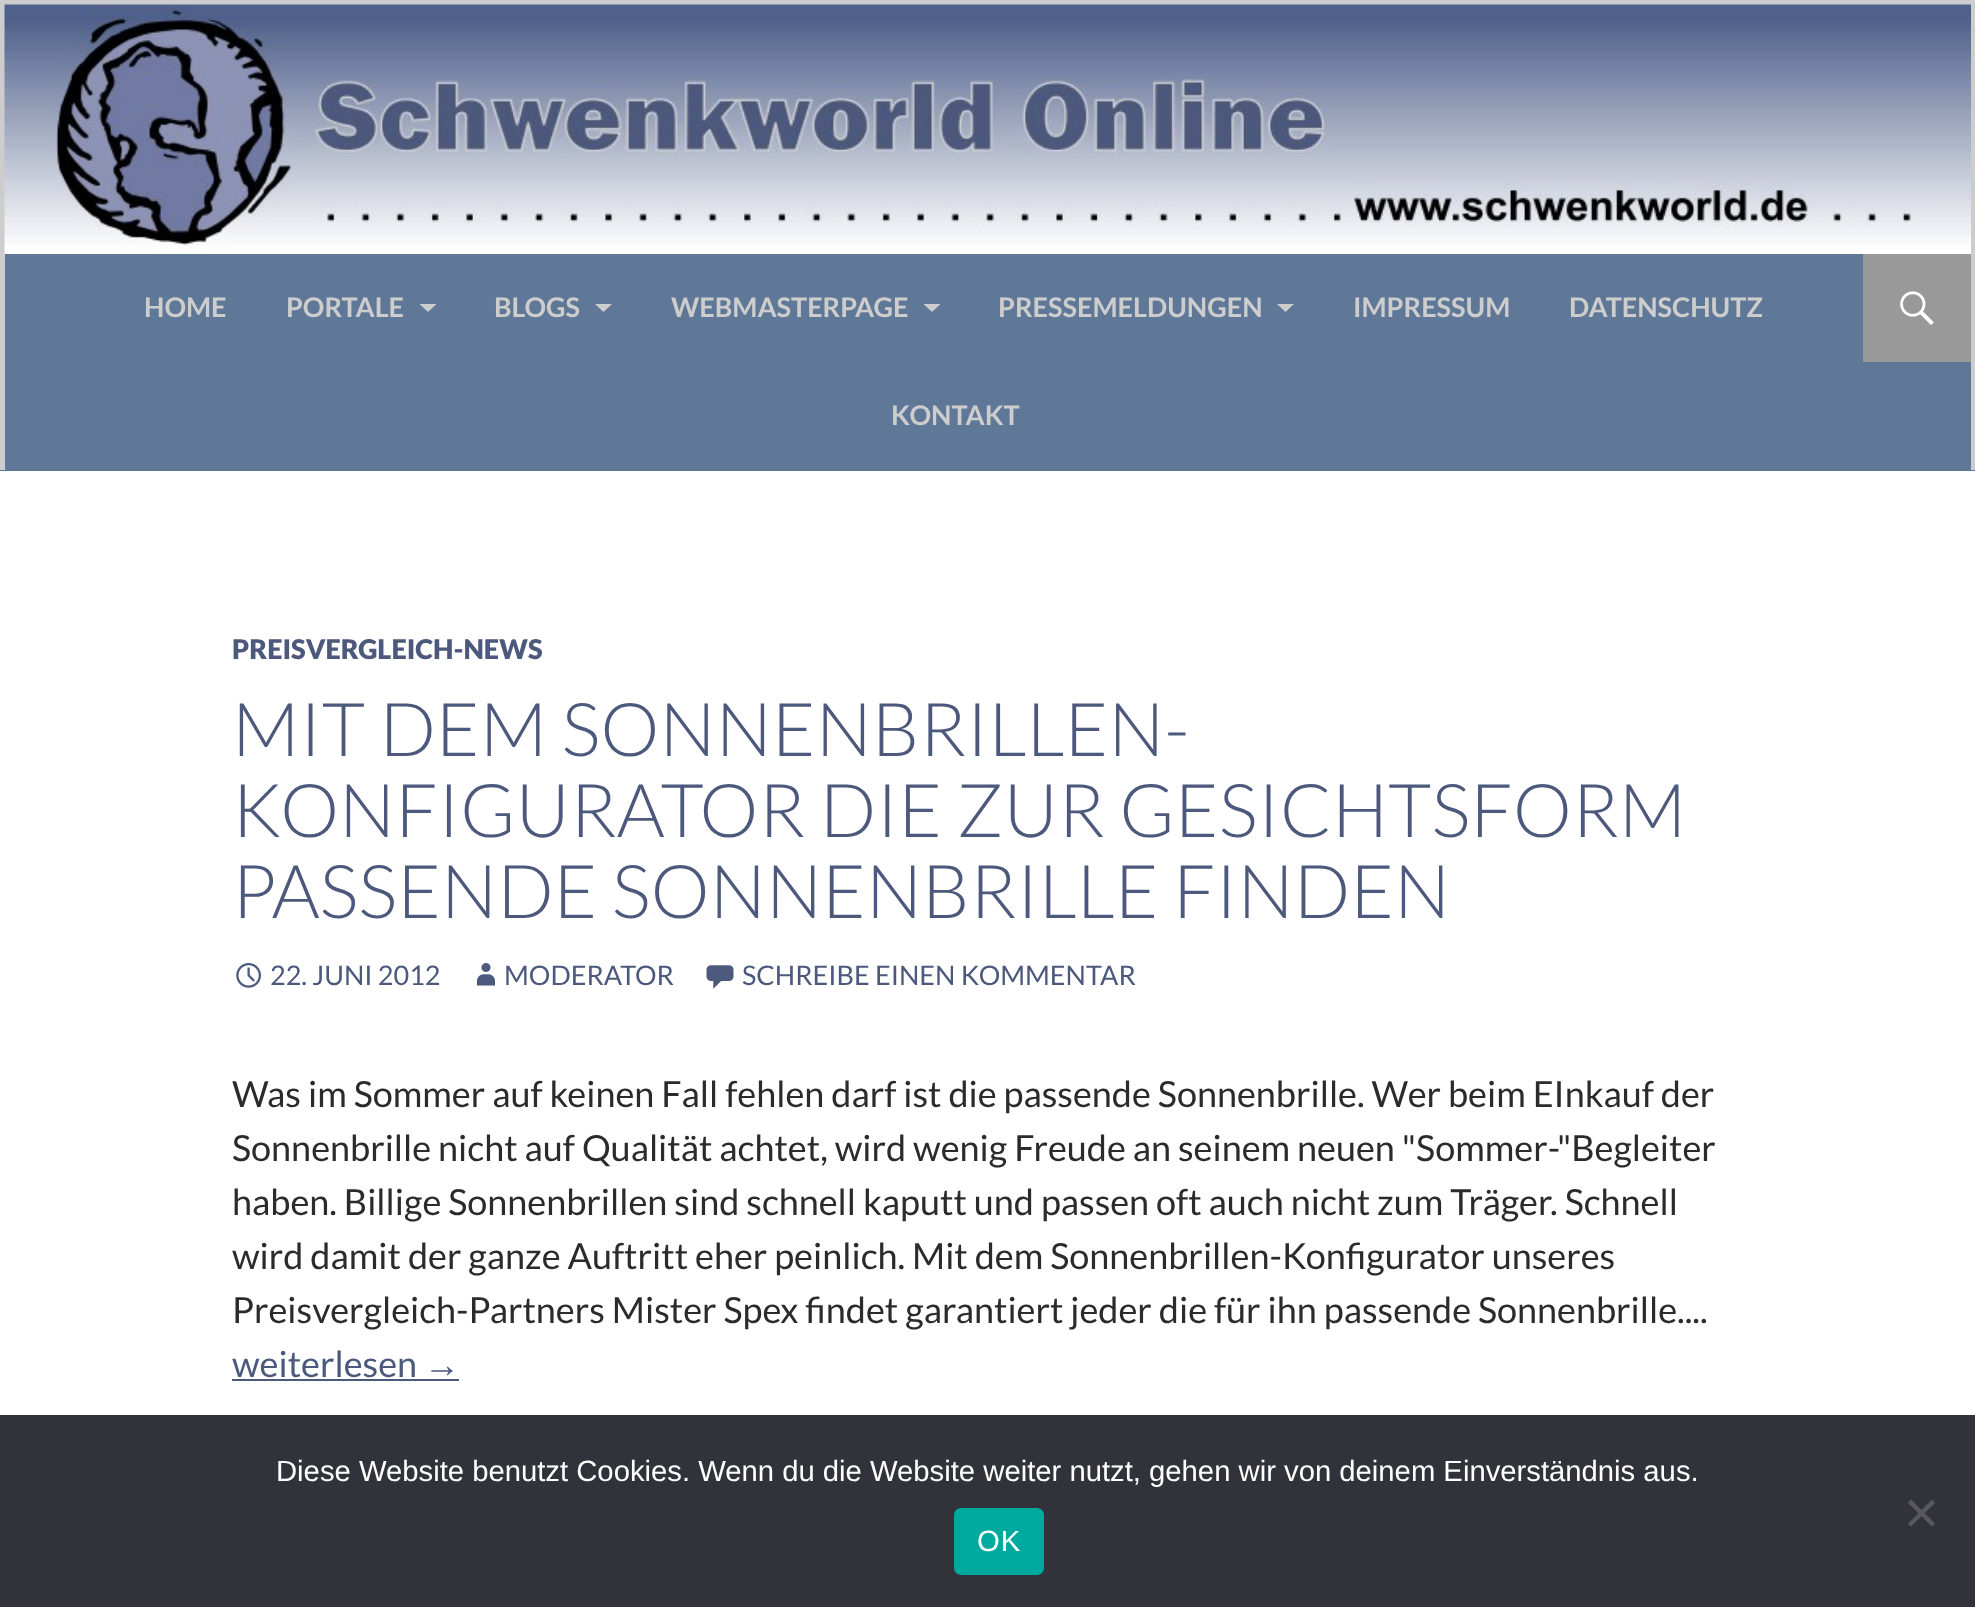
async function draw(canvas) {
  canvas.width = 1975
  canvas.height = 1607
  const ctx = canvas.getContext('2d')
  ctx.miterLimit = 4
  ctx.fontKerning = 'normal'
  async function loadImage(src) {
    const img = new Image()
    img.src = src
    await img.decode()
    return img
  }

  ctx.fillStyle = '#fff'
  ctx.fillRect(0, 0, 1975, 1607)
  ctx.fillStyle = '#cdcdcd'
  ctx.fillRect(0, 0, 1975, 5)
  ctx.fillRect(1971, 0, 4, 254)
  ctx.fillRect(0, 0, 5, 254)
  ctx.drawImage(await loadImage('image0.png'), 4, 4, 1967, 250)
  ctx.fillStyle = '#607898'
  ctx.fillRect(0, 254, 1975, 217)
  ctx.fillStyle = '#cdcdcd'
  ctx.fillRect(1971, 254, 4, 216)
  ctx.fillRect(0, 254, 5, 216)
  ctx.font = 'bold 27px Lato'
  ctx.fillText('HOME', 144, 317)
  ctx.fillText('PORTALE', 286, 317)
  ctx.beginPath()
  ctx.moveTo(419.5, 304)
  ctx.lineTo(428, 312)
  ctx.lineTo(436.5, 304)
  ctx.closePath()
  ctx.fill()
  ctx.fillText('BLOGS', 494, 317)
  ctx.beginPath()
  ctx.moveTo(595, 304)
  ctx.lineTo(603.5, 312)
  ctx.lineTo(612, 304)
  ctx.closePath()
  ctx.fill()
  ctx.fillText('WEBMASTERPAGE', 671, 317)
  ctx.beginPath()
  ctx.moveTo(923.5, 304)
  ctx.lineTo(932, 312)
  ctx.lineTo(940.5, 304)
  ctx.closePath()
  ctx.fill()
  ctx.fillText('PRESSEMELDUNGEN', 998, 317)
  ctx.beginPath()
  ctx.moveTo(1277, 304)
  ctx.lineTo(1285.5, 312)
  ctx.lineTo(1294, 304)
  ctx.closePath()
  ctx.fill()
  ctx.fillText('IMPRESSUM', 1353, 317)
  ctx.fillText('DATENSCHUTZ', 1569, 317)
  ctx.fillText('KONTAKT', 891, 425)
  ctx.fillStyle = '#999'
  ctx.fillRect(1863, 254, 108, 108)
  ctx.drawImage(await loadImage('image1.png'), 1900, 291, 34, 34)
  ctx.font = '900 27px Lato'
  ctx.fillStyle = '#4c597c'
  ctx.fillText('PREISVERGLEICH-NEWS', 232, 659)
  ctx.font = '300 74.25px Lato'
  ctx.fillText('MIT DEM SONNENBRILLEN-', 232, 756)
  ctx.fillText('KONFIGURATOR DIE ZUR GESICHTSFORM', 232, 837)
  ctx.fillText('PASSENDE SONNENBRILLE FINDEN', 232, 918)
  ctx.drawImage(await loadImage('image2.png'), 236, 963, 25, 25)
  ctx.font = '27px Lato'
  ctx.fillText('22. JUNI 2012', 270, 985)
  ctx.drawImage(await loadImage('image3.png'), 477, 963, 18, 23)
  ctx.fillText('MODERATOR', 504, 985)
  ctx.drawImage(await loadImage('image4.png'), 706, 965, 28, 24)
  ctx.fillText('SCHREIBE EINEN KOMMENTAR', 742, 985)
  ctx.font = '36px Lato'
  ctx.fillStyle = '#2b2b2b'
  ctx.fillText('Was im Sommer auf keinen Fall fehlen darf ist die passende Sonnenbrille. Wer beim EInkauf der', 232, 1107)
  ctx.fillText('Sonnenbrille nicht auf Qualität achtet, wird wenig Freude an seinem neuen "Sommer-"Begleiter', 232, 1161)
  ctx.fillText('haben. Billige Sonnenbrillen sind schnell kaputt und passen oft auch nicht zum Träger. Schnell', 232, 1215)
  ctx.fillText('wird damit der ganze Auftritt eher peinlich. Mit dem Sonnenbrillen-Konfigurator unseres', 232, 1269)
  ctx.fillText('Preisvergleich-Partners Mister Spex findet garantiert jeder die für ihn passende Sonnenbrille....', 232, 1323)
  ctx.fillStyle = '#4c597c'
  ctx.fillText('weiterlesen', 232, 1377)
  ctx.font = '36px Liberation Sans'
  ctx.fillText('→', 424, 1377)
  ctx.fillRect(232, 1379, 227, 2)
  ctx.fillStyle = '#32323a'
  ctx.fillRect(0, 1415, 1975, 192)
  ctx.font = '29.25px Liberation Sans'
  ctx.fillStyle = '#fff'
  ctx.fillText('Diese Website benutzt Cookies. Wenn du die Website weiter nutzt, gehen wir von deinem Einverständnis aus.', 276, 1481)
  ctx.fillStyle = '#59595d'
  ctx.beginPath()
  ctx.moveTo(1932, 1499.5)
  ctx.lineTo(1935, 1503)
  ctx.lineTo(1911, 1526.5)
  ctx.lineTo(1908, 1523.5)
  ctx.closePath()
  ctx.fill()
  ctx.beginPath()
  ctx.moveTo(1908, 1503)
  ctx.lineTo(1911, 1499.5)
  ctx.lineTo(1935, 1523.5)
  ctx.lineTo(1932, 1526.5)
  ctx.closePath()
  ctx.fill()
  ctx.fillStyle = '#00a99d'
  ctx.beginPath()
  ctx.roundRect(954, 1508, 90, 67, 7)
  ctx.fill()
  ctx.letterSpacing = '1px'
  ctx.fillStyle = '#fff'
  ctx.fillText('OK', 977, 1551)
}

draw(document.querySelector('canvas'))
